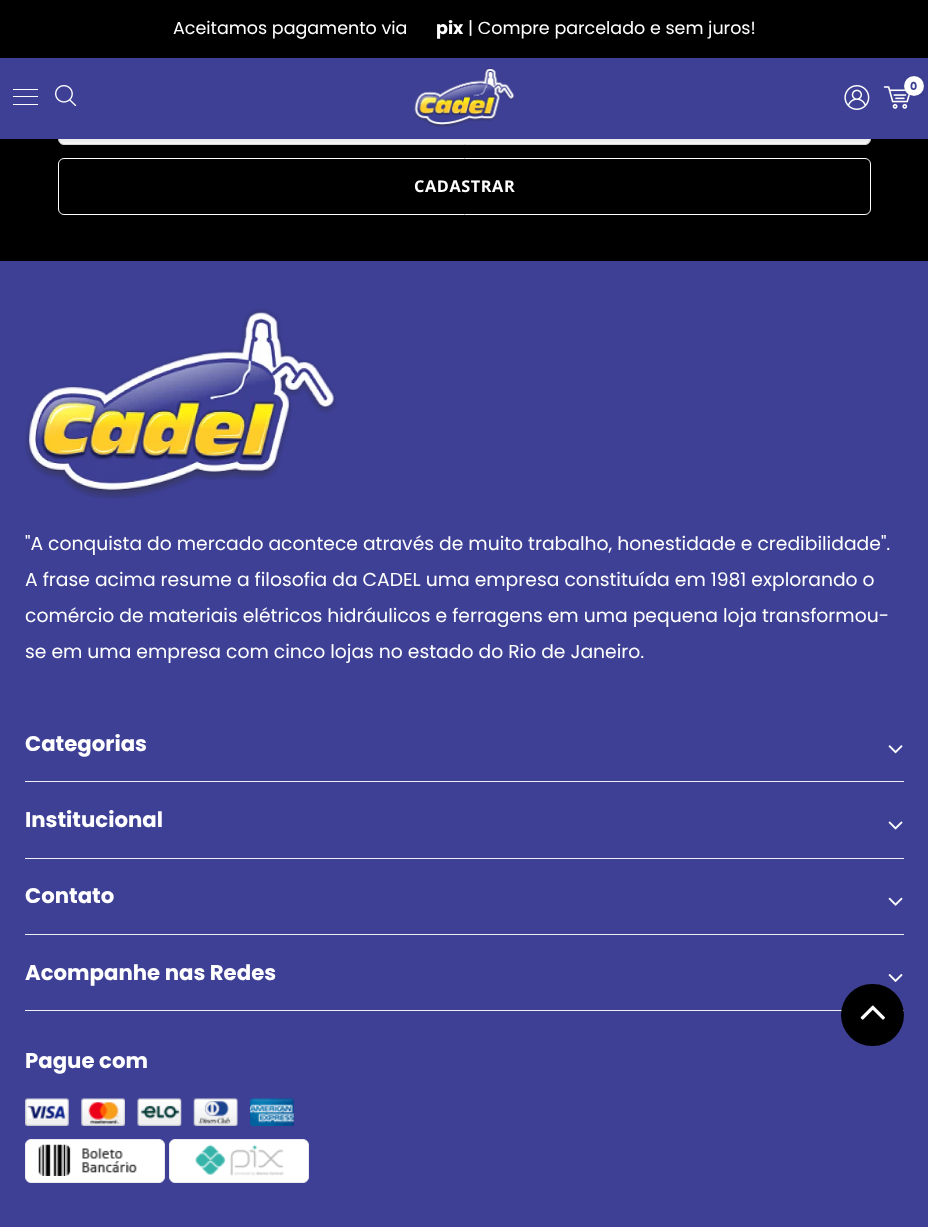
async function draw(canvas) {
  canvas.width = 928
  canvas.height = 1227
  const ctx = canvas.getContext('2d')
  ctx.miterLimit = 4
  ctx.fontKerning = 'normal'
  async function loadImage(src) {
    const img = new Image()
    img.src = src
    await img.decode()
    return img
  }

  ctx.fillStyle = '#000'
  ctx.fillRect(0, 0, 928, 1227)
  ctx.fillStyle = '#fff'
  ctx.beginPath()
  ctx.roundRect(58.5, 88.5, 812, 56, 5.5)
  ctx.fill()
  ctx.strokeStyle = '#dcdcdc'
  ctx.stroke()
  ctx.fillStyle = '#00000030'
  ctx.filter = 'blur(6px)'
  ctx.beginPath()
  ctx.rect(0, 55, 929, 84)
  ctx.fill()
  ctx.filter = 'none'
  ctx.font = '17.5px Poppins'
  ctx.fillStyle = '#fff'
  ctx.fillText('Aceitamos pagamento via', 173, 34)
  ctx.font = 'bold 17.5px Poppins'
  ctx.fillText('pix', 436, 34)
  ctx.font = '17.5px Poppins'
  ctx.fillText('| Compre parcelado e sem juros!', 468, 34)
  ctx.beginPath()
  ctx.roundRect(58.5, 158.5, 812, 56, 5.5)
  ctx.strokeStyle = '#fff'
  ctx.stroke()
  ctx.letterSpacing = '0.6px'
  ctx.font = 'bold 16.25px Open Sans'
  ctx.fillText('CADASTRAR', 414, 192)
  ctx.fillStyle = '#3e4095'
  ctx.fillRect(0, 261, 928, 966)
  ctx.drawImage(await loadImage('image0.png'), 25, 309, 312, 190)
  ctx.letterSpacing = '0px'
  ctx.font = '18.75px Poppins'
  ctx.fillStyle = '#fff'
  ctx.fillText('"A conquista do mercado acontece através de muito trabalho, honestidade e credibilidade".', 25, 550)
  ctx.fillText('A frase acima resume a filosofia da CADEL uma empresa constituída em 1981 explorando o', 25, 586)
  ctx.fillText('comércio de materiais elétricos hidráulicos e ferragens em uma pequena loja transformou-', 25, 622)
  ctx.fillText('se em uma empresa com cinco lojas no estado do Rio de Janeiro.', 25, 658)
  ctx.fillStyle = '#eee'
  ctx.fillRect(25, 781, 879, 1)
  ctx.font = 'bold 21.25px Poppins'
  ctx.fillStyle = '#fff'
  ctx.fillText('Categorias', 25, 751)
  ctx.drawImage(await loadImage('image1.png'), 888, 745, 15, 9)
  ctx.fillStyle = '#eee'
  ctx.fillRect(25, 858, 879, 1)
  ctx.fillStyle = '#fff'
  ctx.fillText('Institucional', 25, 827)
  ctx.drawImage(await loadImage('image2.png'), 888, 821, 15, 9)
  ctx.fillStyle = '#eee'
  ctx.fillRect(25, 934, 879, 1)
  ctx.fillStyle = '#fff'
  ctx.fillText('Contato', 25, 903)
  ctx.drawImage(await loadImage('image3.png'), 888, 897, 15, 9)
  ctx.fillStyle = '#eee'
  ctx.fillRect(25, 1010, 879, 1)
  ctx.fillStyle = '#fff'
  ctx.fillText('Acompanhe nas Redes', 25, 980)
  ctx.drawImage(await loadImage('image4.png'), 888, 974, 15, 8)
  ctx.fillText('Pague com', 25, 1068)
  ctx.drawImage(await loadImage('image5.png'), 25, 1098, 44, 28)
  ctx.drawImage(await loadImage('image6.png'), 81, 1098, 44, 28)
  ctx.drawImage(await loadImage('image7.png'), 137, 1098, 45, 28)
  ctx.drawImage(await loadImage('image8.png'), 193, 1098, 45, 28)
  ctx.drawImage(await loadImage('image9.png'), 250, 1098, 44, 28)
  ctx.beginPath()
  ctx.roundRect(25.5, 1139.5, 139, 43, 5.5)
  ctx.fill()
  ctx.strokeStyle = '#ebebeb'
  ctx.stroke()
  ctx.drawImage(await loadImage('image10.png'), 38, 1144, 99, 32)
  ctx.beginPath()
  ctx.roundRect(169.5, 1139.5, 139, 43, 5.5)
  ctx.fill()
  ctx.stroke()
  ctx.drawImage(await loadImage('image11.png'), 195, 1144, 89, 32)
  ctx.fillStyle = '#3e4095'
  ctx.fillRect(0, 58, 928, 81)
  ctx.fillStyle = '#fff'
  ctx.fillRect(13, 89, 25, 1)
  ctx.fillRect(13, 96, 25, 1)
  ctx.fillRect(13, 104, 25, 1)
  ctx.drawImage(await loadImage('image12.png'), 55, 85, 22, 21)
  ctx.drawImage(await loadImage('image13.png'), 414, 68, 101, 59)
  ctx.drawImage(await loadImage('image14.png'), 844, 85, 26, 25)
  ctx.drawImage(await loadImage('image15.png'), 883, 86, 27, 23)
  ctx.beginPath()
  ctx.arc(914, 86, 10, 0, 2 * Math.PI)
  ctx.fill()
  ctx.strokeStyle = '#0000000f'
  ctx.strokeRect(904.5, 76.5, 19, 19)
  ctx.font = 'bold 11px Poppins'
  ctx.fillStyle = '#3e4095'
  ctx.fillText('0', 910, 90)
  ctx.fillStyle = '#000'
  ctx.beginPath()
  ctx.roundRect(841, 984, 63, 62, 31)
  ctx.fill()
  ctx.drawImage(await loadImage('image16.png'), 860, 1005, 25, 15)
}

draw(document.querySelector('canvas'))
